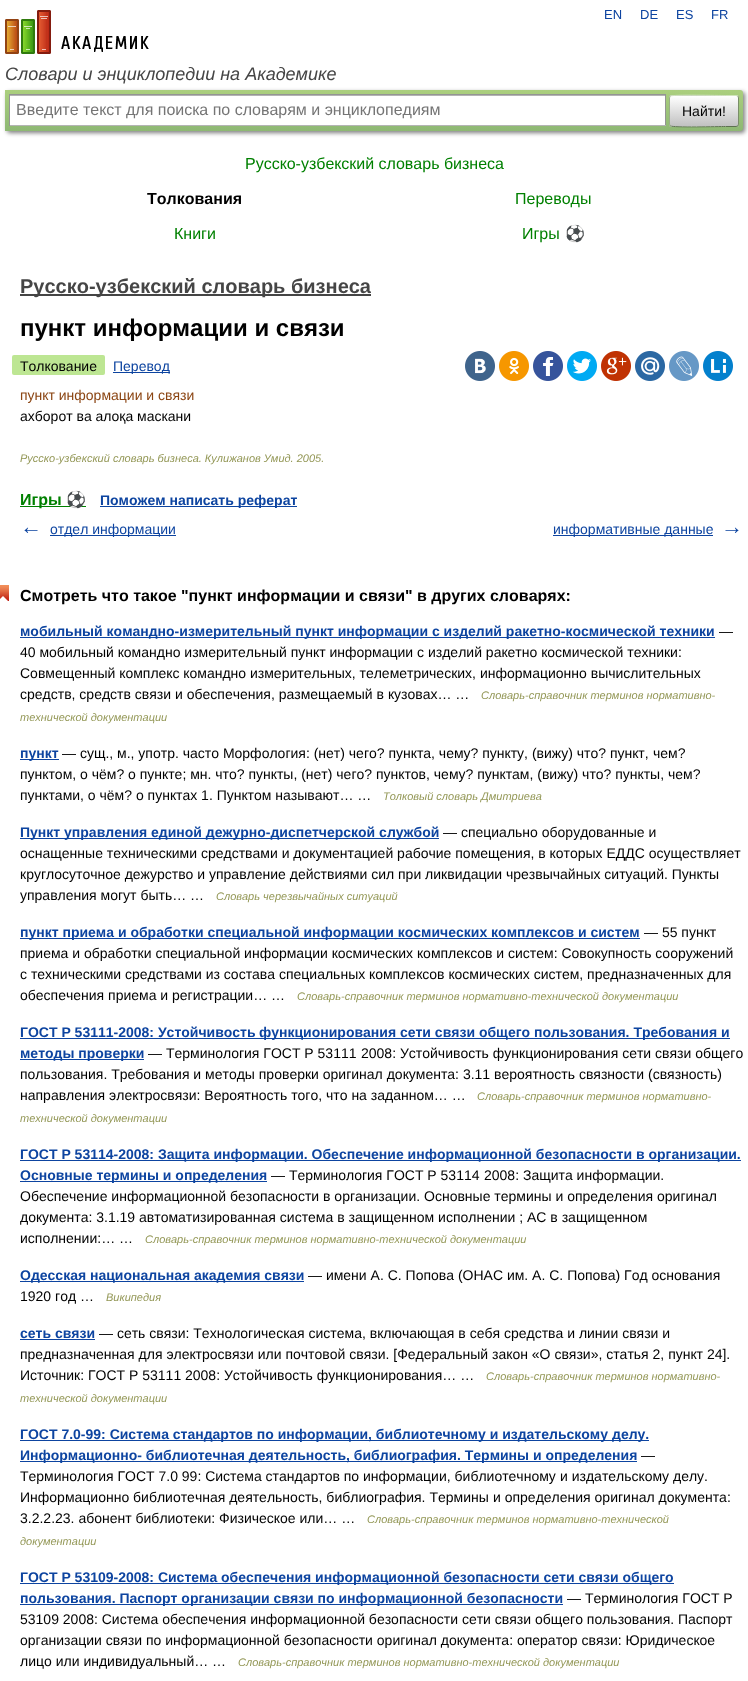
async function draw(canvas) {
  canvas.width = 748
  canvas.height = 1681
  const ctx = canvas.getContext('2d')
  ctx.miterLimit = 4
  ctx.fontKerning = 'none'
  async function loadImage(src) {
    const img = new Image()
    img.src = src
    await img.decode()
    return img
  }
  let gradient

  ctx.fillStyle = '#fff'
  ctx.fillRect(0, 0, 748, 1681)
  ctx.drawImage(await loadImage('image0.png'), 5, 10, 144, 44)
  ctx.font = '13px Liberation Sans'
  ctx.fillStyle = '#0d44a0'
  ctx.fillText('EN', 604, 19)
  ctx.fillText('DE', 640, 19)
  ctx.fillText('ES', 676, 19)
  ctx.fillText('FR', 711, 19)
  ctx.font = 'italic 18px Liberation Sans'
  ctx.fillStyle = '#454545'
  ctx.fillText('Словари и энциклопедии на Академике', 5, 80)
  ctx.fillStyle = '#00000080'
  ctx.filter = 'blur(2px)'
  ctx.beginPath()
  ctx.roundRect(7, 92, 738, 41, 3)
  ctx.fill()
  ctx.filter = 'none'
  gradient = ctx.createLinearGradient(374, 90, 374, 131)
  gradient.addColorStop(0, '#abcf7e')
  gradient.addColorStop(1, '#8eb874')
  ctx.fillStyle = gradient
  ctx.beginPath()
  ctx.roundRect(5, 90, 738, 41, [0, 3, 3, 0])
  ctx.fill()
  ctx.fillStyle = '#fff'
  ctx.fillRect(10, 96, 655, 29)
  ctx.fillStyle = '#b3b3b3'
  ctx.fillRect(10, 95, 655, 1)
  ctx.fillStyle = '#949494'
  ctx.fillRect(9, 94, 657, 1)
  ctx.fillRect(665, 94, 1, 32)
  ctx.fillStyle = '#b4b4b4'
  ctx.fillRect(9, 125, 657, 1)
  ctx.fillStyle = '#949494'
  ctx.fillRect(9, 94, 1, 32)
  ctx.font = '16px Liberation Sans'
  ctx.fillStyle = '#757575'
  ctx.fillText('Введите текст для поиска по словарям и энциклопедиям', 16, 115)
  ctx.save()
  ctx.beginPath()
  ctx.roundRect(669, 95, 70, 32, 3)
  ctx.clip()
  gradient = ctx.createLinearGradient(704, 66, 704, 96)
  gradient.addColorStop(0, '#fff')
  gradient.addColorStop(1, '#c1c1c1')
  ctx.fillStyle = gradient
  ctx.fillRect(669, 95, 70, 1)
  gradient = ctx.createLinearGradient(704, 96, 704, 126)
  gradient.addColorStop(0, '#fff')
  gradient.addColorStop(1, '#c1c1c1')
  ctx.fillStyle = gradient
  ctx.fillRect(669, 96, 70, 30)
  gradient = ctx.createLinearGradient(704, 126, 704, 156)
  gradient.addColorStop(0, '#fff')
  gradient.addColorStop(1, '#c1c1c1')
  ctx.fillStyle = gradient
  ctx.fillRect(669, 126, 70, 1)
  ctx.restore()
  ctx.beginPath()
  ctx.moveTo(670, 96)
  ctx.lineTo(670.5, 96)
  ctx.bezierCurveTo(672.5, 94.5, 719, 95.5, 725.5, 95.5)
  ctx.lineTo(736, 95.5)
  ctx.lineTo(738, 96)
  ctx.strokeStyle = '#d1e4bc'
  ctx.stroke()
  ctx.beginPath()
  ctx.moveTo(738, 96)
  ctx.bezierCurveTo(738, 96.5, 738.5, 97.5, 738.5, 98)
  ctx.lineTo(738.5, 124)
  ctx.bezierCurveTo(738.5, 124.5, 738, 125.5, 738, 126)
  ctx.strokeStyle = '#7a8e69'
  ctx.stroke()
  ctx.beginPath()
  ctx.moveTo(738, 126)
  ctx.lineTo(736, 126.5)
  ctx.lineTo(725.5, 126.5)
  ctx.bezierCurveTo(719, 126.5, 672.5, 127.5, 670.5, 126)
  ctx.lineTo(670, 126)
  ctx.strokeStyle = '#5d7250'
  ctx.stroke()
  ctx.beginPath()
  ctx.moveTo(670, 126)
  ctx.bezierCurveTo(670, 125.5, 669.5, 124.5, 669.5, 124)
  ctx.lineTo(669.5, 98)
  ctx.bezierCurveTo(669.5, 97.5, 670, 96.5, 670, 96)
  ctx.strokeStyle = '#9aae89'
  ctx.stroke()
  ctx.font = '14px Liberation Sans'
  ctx.fillStyle = '#000'
  ctx.fillText('Найти!', 682, 116)
  ctx.font = '16px Liberation Sans'
  ctx.fillStyle = '#008000'
  ctx.fillText('Русско-узбекский словарь бизнеса', 245, 169)
  ctx.font = 'bold 16px Liberation Sans'
  ctx.fillStyle = '#000'
  ctx.fillText('Толкования', 147, 204)
  ctx.font = '16px Liberation Sans'
  ctx.fillStyle = '#008000'
  ctx.fillText('Переводы', 515, 204)
  ctx.fillText('Книги', 174, 239)
  ctx.fillText('Игры', 522, 239)
  ctx.font = '16px Noto Color Emoji'
  ctx.fillText('⚽', 565, 239)
  ctx.fillStyle = '#454545'
  ctx.fillRect(20, 294, 351, 2)
  ctx.font = 'bold 20px Liberation Sans'
  ctx.fillText('Русско-узбекский словарь бизнеса', 20, 293)
  ctx.font = 'bold 24px Liberation Sans'
  ctx.fillStyle = '#000'
  ctx.fillText('пункт информации и связи', 20, 336)
  ctx.fillStyle = '#bde693'
  ctx.beginPath()
  ctx.roundRect(12, 355, 93, 20, 2)
  ctx.fill()
  ctx.font = '14px Liberation Sans'
  ctx.fillStyle = '#000'
  ctx.fillText('Толкование', 20, 371)
  ctx.fillStyle = '#0d44a0'
  ctx.fillRect(113, 372, 57, 1)
  ctx.fillText('Перевод', 113, 371)
  ctx.drawImage(await loadImage('image1.png'), 465, 351, 30, 30)
  ctx.drawImage(await loadImage('image2.png'), 499, 351, 30, 30)
  ctx.drawImage(await loadImage('image3.png'), 533, 351, 30, 30)
  ctx.drawImage(await loadImage('image4.png'), 567, 351, 30, 30)
  ctx.drawImage(await loadImage('image5.png'), 601, 351, 30, 30)
  ctx.drawImage(await loadImage('image6.png'), 635, 351, 30, 30)
  ctx.drawImage(await loadImage('image7.png'), 669, 351, 30, 30)
  ctx.drawImage(await loadImage('image8.png'), 703, 351, 30, 30)
  ctx.fillStyle = '#8b4513'
  ctx.fillText('пункт информации и связи', 20, 400)
  ctx.fillStyle = '#000'
  ctx.fillText('ахборот ва алоқа маскани', 20, 421)
  ctx.font = 'italic 11px Liberation Sans'
  ctx.fillStyle = '#939756'
  ctx.fillText('Русско-узбекский словарь бизнеса. Кулижанов Умид. 2005.', 20, 462)
  ctx.fillStyle = '#008000'
  ctx.fillRect(20, 506, 66, 1)
  ctx.font = 'bold 16px Liberation Sans'
  ctx.fillText('Игры', 20, 505)
  ctx.font = 'bold 16px Noto Color Emoji'
  ctx.fillText('⚽', 66, 505)
  ctx.fillStyle = '#0d44a0'
  ctx.fillRect(100, 506, 197, 1)
  ctx.font = 'bold 14px Liberation Sans'
  ctx.fillText('Поможем написать реферат', 100, 505)
  ctx.font = 'bold 22px Liberation Sans'
  ctx.fillText('←', 20, 534)
  ctx.fillRect(50, 535, 126, 1)
  ctx.font = '14px Liberation Sans'
  ctx.fillText('отдел информации', 50, 534)
  ctx.fillRect(553, 535, 160, 1)
  ctx.fillText('информативные данные', 553, 534)
  ctx.font = 'bold 22px Liberation Sans'
  ctx.fillText('→', 721, 534)
  ctx.drawImage(await loadImage('image9.png'), 0, 585, 9, 16)
  ctx.font = 'bold 16px Liberation Sans'
  ctx.fillStyle = '#000'
  ctx.fillText('Смотреть что такое "пункт информации и связи" в других словарях:', 20, 601)
  ctx.fillStyle = '#0d44a0'
  ctx.fillRect(20, 637, 695, 1)
  ctx.font = 'bold 14px Liberation Sans'
  ctx.fillText('мобильный командно-измерительный пункт информации с изделий ракетно-космической техники', 20, 636)
  ctx.font = '14px Liberation Sans'
  ctx.fillStyle = '#000'
  ctx.fillText('—', 719, 636)
  ctx.fillText('40 мобильный командно измерительный пункт информации с изделий ракетно космической техники:', 20, 657)
  ctx.fillText('Совмещенный комплекс командно измерительных, телеметрических, информационно вычислительных', 20, 678)
  ctx.fillText('средств, средств связи и обеспечения, размещаемый в кузовах… …', 20, 699)
  ctx.font = 'italic 11px Liberation Sans'
  ctx.fillStyle = '#939756'
  ctx.fillText('Словарь-справочник терминов нормативно-', 481, 699)
  ctx.fillText('технической документации', 20, 721)
  ctx.fillStyle = '#0d44a0'
  ctx.fillRect(20, 759, 39, 1)
  ctx.font = 'bold 14px Liberation Sans'
  ctx.fillText('пункт', 20, 758)
  ctx.font = '14px Liberation Sans'
  ctx.fillStyle = '#000'
  ctx.fillText('— сущ., м., употр. часто Морфология: (нет) чего? пункта, чему? пункту, (вижу) что? пункт,', 62, 758)
  ctx.fillText('чем?', 653, 758)
  ctx.fillText('пунктом, о чём? о пункте; мн. что? пункты, (нет) чего? пунктов, чему? пунктам, (вижу) что? пункты, чем?', 20, 779)
  ctx.fillText('пунктами, о чём? о пунктах 1. Пунктом называют… …', 20, 800)
  ctx.font = 'italic 11px Liberation Sans'
  ctx.fillStyle = '#939756'
  ctx.fillText('Толковый словарь Дмитриева', 383, 800)
  ctx.fillStyle = '#0d44a0'
  ctx.fillRect(20, 838, 419, 1)
  ctx.font = 'bold 14px Liberation Sans'
  ctx.fillText('Пункт управления единой дежурно-диспетчерской службой', 20, 837)
  ctx.font = '14px Liberation Sans'
  ctx.fillStyle = '#000'
  ctx.fillText('— специально оборудованные и', 443, 837)
  ctx.fillText('оснащенные техническими средствами и документацией рабочие помещения, в которых ЕДДС осуществляет', 20, 858)
  ctx.fillText('круглосуточное дежурство и управление действиями сил при ликвидации чрезвычайных ситуаций. Пункты', 20, 879)
  ctx.fillText('управления могут быть… …', 20, 900)
  ctx.font = 'italic 11px Liberation Sans'
  ctx.fillStyle = '#939756'
  ctx.fillText('Словарь черезвычайных ситуаций', 216, 900)
  ctx.fillStyle = '#0d44a0'
  ctx.fillRect(20, 938, 620, 1)
  ctx.font = 'bold 14px Liberation Sans'
  ctx.fillText('пункт приема и обработки специальной информации космических комплексов и систем', 20, 937)
  ctx.font = '14px Liberation Sans'
  ctx.fillStyle = '#000'
  ctx.fillText('— 55 пункт', 644, 937)
  ctx.fillText('приема и обработки специальной информации космических комплексов и систем: Совокупность сооружений', 20, 958)
  ctx.fillText('с техническими средствами из состава специальных комплексов космических систем, предназначенных для', 20, 979)
  ctx.fillText('обеспечения приема и регистрации… …', 20, 1000)
  ctx.font = 'italic 11px Liberation Sans'
  ctx.fillStyle = '#939756'
  ctx.fillText('Словарь-справочник терминов нормативно-технической документации', 297, 1000)
  ctx.fillStyle = '#0d44a0'
  ctx.fillRect(20, 1038, 710, 1)
  ctx.font = 'bold 14px Liberation Sans'
  ctx.fillText('ГОСТ Р 53111-2008: Устойчивость', 20, 1037)
  ctx.fillText('функционирования сети связи общего пользования. Требования и', 259, 1037)
  ctx.fillRect(20, 1059, 124, 1)
  ctx.fillText('методы проверки', 20, 1058)
  ctx.font = '14px Liberation Sans'
  ctx.fillStyle = '#000'
  ctx.fillText('— Терминология ГОСТ Р 53111', 148, 1058)
  ctx.fillText('2008: Устойчивость функционирования сети связи общего', 361, 1058)
  ctx.fillText('пользования. Требования и методы проверки оригинал документа: 3.11', 20, 1079)
  ctx.fillText('вероятность связности (связность)', 494, 1079)
  ctx.fillText('направления электросвязи: Вероятность того, что на заданном… …', 20, 1100)
  ctx.font = 'italic 11px Liberation Sans'
  ctx.fillStyle = '#939756'
  ctx.fillText('Словарь-справочник терминов нормативно-', 477, 1100)
  ctx.fillText('технической документации', 20, 1122)
  ctx.fillStyle = '#0d44a0'
  ctx.fillRect(20, 1160, 721, 1)
  ctx.font = 'bold 14px Liberation Sans'
  ctx.fillText('ГОСТ Р 53114-2008: Защита информации. Обеспечение информационной безопасности', 20, 1159)
  ctx.fillText('в организации.', 636, 1159)
  ctx.fillRect(20, 1181, 247, 1)
  ctx.fillText('Основные термины и определения', 20, 1180)
  ctx.font = '14px Liberation Sans'
  ctx.fillStyle = '#000'
  ctx.fillText('— Терминология ГОСТ Р 53114', 271, 1180)
  ctx.fillText('2008: Защита информации.', 484, 1180)
  ctx.fillText('Обеспечение информационной безопасности в организации. Основные термины и определения оригинал', 20, 1201)
  ctx.fillText('документа: 3.1.19 автоматизированная система в защищенном исполнении ; АС в защищенном', 20, 1222)
  ctx.fillText('исполнении:… …', 20, 1243)
  ctx.font = 'italic 11px Liberation Sans'
  ctx.fillStyle = '#939756'
  ctx.fillText('Словарь-справочник терминов нормативно-технической документации', 145, 1243)
  ctx.fillStyle = '#0d44a0'
  ctx.fillRect(20, 1281, 284, 1)
  ctx.font = 'bold 14px Liberation Sans'
  ctx.fillText('Одесская национальная академия связи', 20, 1280)
  ctx.font = '14px Liberation Sans'
  ctx.fillStyle = '#000'
  ctx.fillText('— имени А. С. Попова (ОНАС им. А. С. Попова) Год основания', 308, 1280)
  ctx.fillText('1920 год …', 20, 1301)
  ctx.font = 'italic 11px Liberation Sans'
  ctx.fillStyle = '#939756'
  ctx.fillText('Википедия', 106, 1301)
  ctx.font = 'bold 14px Liberation Sans'
  ctx.fillStyle = '#0d44a0'
  ctx.fillText('сеть связи', 20, 1338)
  ctx.fillRect(20, 1339, 75, 1)
  ctx.font = '14px Liberation Sans'
  ctx.fillStyle = '#000'
  ctx.fillText('— сеть связи: Технологическая система, включающая в себя средства и линии связи и', 99, 1338)
  ctx.fillText('предназначенная для электросвязи или почтовой связи. [Федеральный закон «О связи», статья 2, пункт 24].', 20, 1359)
  ctx.fillText('Источник: ГОСТ Р 53111', 20, 1380)
  ctx.fillText('2008: Устойчивость функционирования… …', 185, 1380)
  ctx.font = 'italic 11px Liberation Sans'
  ctx.fillStyle = '#939756'
  ctx.fillText('Словарь-справочник терминов нормативно-', 486, 1380)
  ctx.fillText('технической документации', 20, 1402)
  ctx.fillStyle = '#0d44a0'
  ctx.fillRect(20, 1440, 629, 1)
  ctx.font = 'bold 14px Liberation Sans'
  ctx.fillText('ГОСТ 7.0-99: Система стандартов по информации, библиотечному и издательскому', 20, 1439)
  ctx.fillText('делу.', 612, 1439)
  ctx.fillRect(20, 1461, 617, 1)
  ctx.fillText('Информационно- библиотечная деятельность, библиография. Термины и определения', 20, 1460)
  ctx.font = '14px Liberation Sans'
  ctx.fillStyle = '#000'
  ctx.fillText('—', 641, 1460)
  ctx.fillText('Терминология ГОСТ 7.0 99: Система стандартов по информации, библиотечному', 20, 1481)
  ctx.fillText('и издательскому делу.', 560, 1481)
  ctx.fillText('Информационно библиотечная деятельность, библиография. Термины', 20, 1502)
  ctx.fillText('и определения оригинал документа:', 493, 1502)
  ctx.fillText('3.2.2.23. абонент библиотеки: Физическое или… …', 20, 1523)
  ctx.font = 'italic 11px Liberation Sans'
  ctx.fillStyle = '#939756'
  ctx.fillText('Словарь-справочник терминов нормативно-технической', 367, 1523)
  ctx.fillText('документации', 20, 1545)
  ctx.fillStyle = '#0d44a0'
  ctx.fillRect(20, 1583, 654, 1)
  ctx.font = 'bold 14px Liberation Sans'
  ctx.fillText('ГОСТ Р 53109-2008: Система обеспечения информационной безопасности сети связи общего', 20, 1582)
  ctx.fillRect(20, 1604, 543, 1)
  ctx.fillText('пользования. Паспорт организации связи по информационной безопасности', 20, 1603)
  ctx.font = '14px Liberation Sans'
  ctx.fillStyle = '#000'
  ctx.fillText('— Терминология ГОСТ Р', 567, 1603)
  ctx.fillText('53109 2008: Система обеспечения информационной безопасности сети связи общего пользования. Паспорт', 20, 1624)
  ctx.fillText('организации связи по информационной безопасности оригинал документа: оператор связи: Юридическое', 20, 1645)
  ctx.fillText('лицо или индивидуальный… …', 20, 1666)
  ctx.font = 'italic 11px Liberation Sans'
  ctx.fillStyle = '#939756'
  ctx.fillText('Словарь-справочник терминов нормативно-технической документации', 238, 1666)
}

draw(document.querySelector('canvas'))
